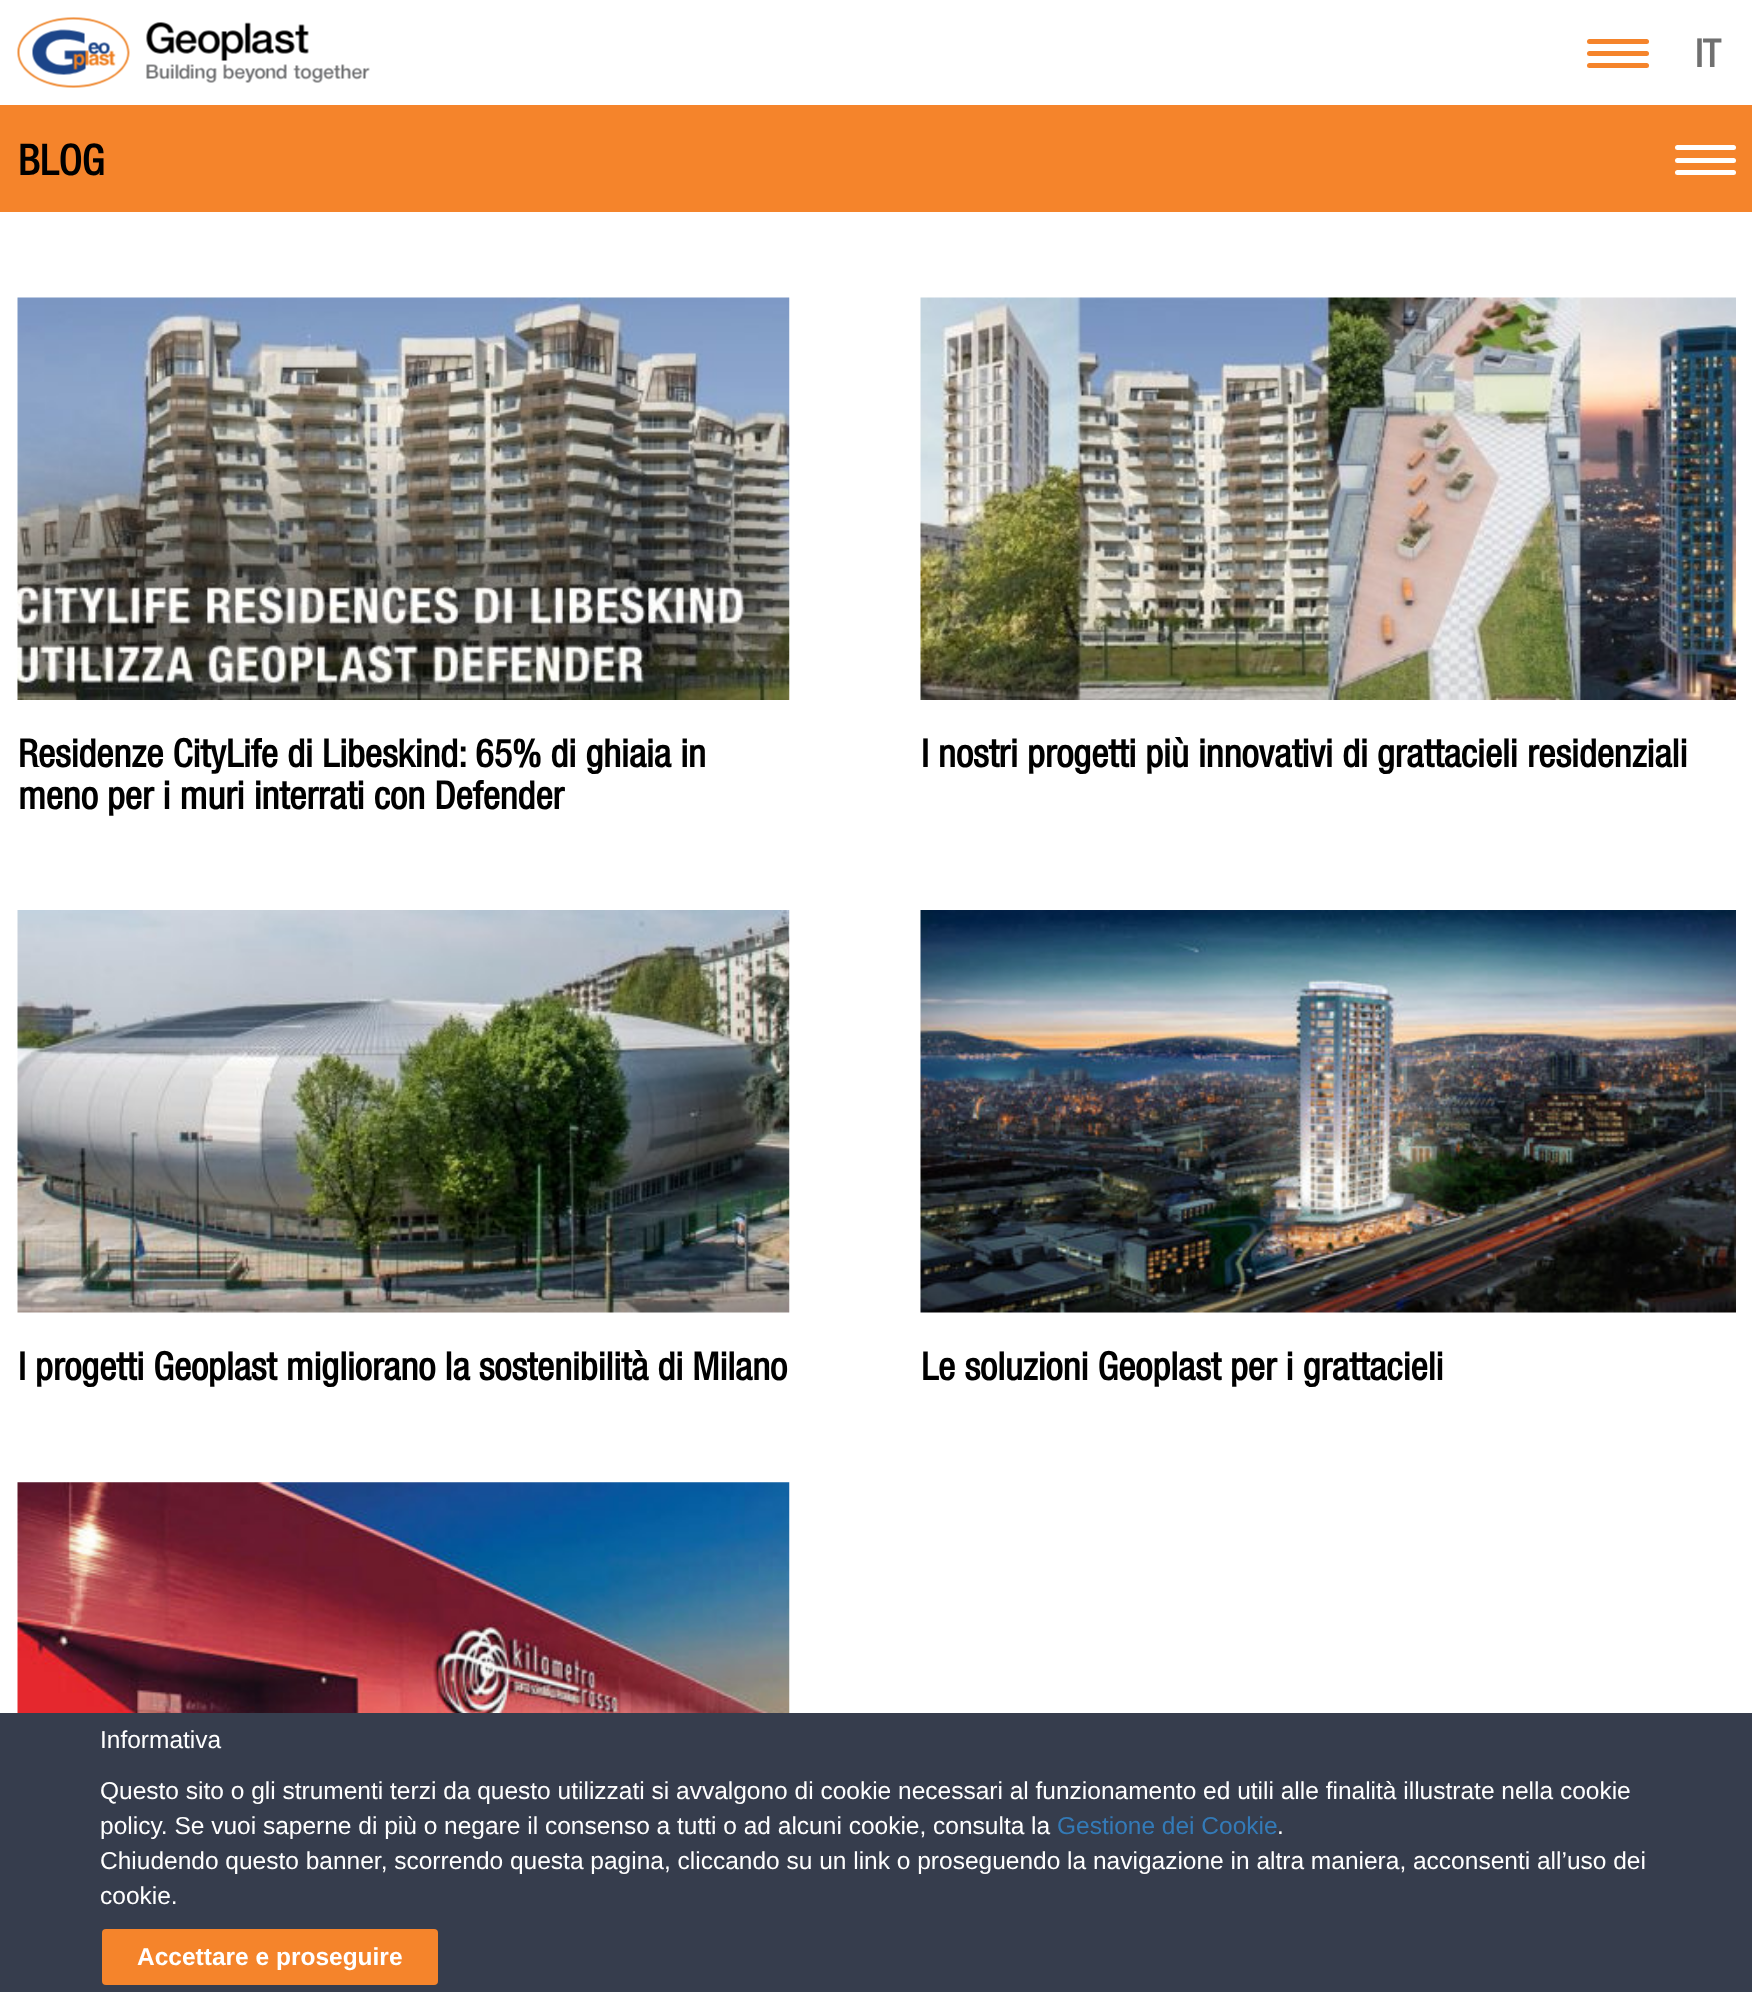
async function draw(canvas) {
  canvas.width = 1752
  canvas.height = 1992
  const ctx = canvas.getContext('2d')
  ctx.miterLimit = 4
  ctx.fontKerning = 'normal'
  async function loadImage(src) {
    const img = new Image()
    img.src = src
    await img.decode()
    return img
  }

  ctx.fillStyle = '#fff'
  ctx.fillRect(0, 0, 1752, 1992)
  ctx.drawImage(await loadImage('image0.png'), 17, 17, 353, 71)
  ctx.fillStyle = '#f5842b'
  ctx.beginPath()
  ctx.roundRect(1587, 51, 62, 5, 2.5)
  ctx.fill()
  ctx.beginPath()
  ctx.roundRect(1587, 39, 62, 5, 2.5)
  ctx.fill()
  ctx.beginPath()
  ctx.roundRect(1587, 63, 62, 5, 2.5)
  ctx.fill()
  ctx.font = 'bold 38.5px Helvetica Neue'
  ctx.fillStyle = '#707070'
  ctx.fillText('IT', 1695, 67)
  ctx.fillStyle = '#f5842b'
  ctx.fillRect(0, 105, 1752, 107)
  ctx.font = 'bold 42px Helvetica Neue'
  ctx.fillStyle = '#000'
  ctx.fillText('BLOG', 18, 175)
  ctx.fillStyle = '#fff'
  ctx.beginPath()
  ctx.roundRect(1675, 158, 61, 5, 2.5)
  ctx.fill()
  ctx.beginPath()
  ctx.roundRect(1675, 145, 61, 5, 2.5)
  ctx.fill()
  ctx.beginPath()
  ctx.roundRect(1675, 170, 61, 5, 2.5)
  ctx.fill()
  ctx.drawImage(await loadImage('image1.png'), 17, 297, 773, 403)
  ctx.font = 'bold 38.5px Helvetica Neue'
  ctx.fillStyle = '#000'
  ctx.fillText('Residenze CityLife di Libeskind: 65% di ghiaia in', 18, 767)
  ctx.fillText('meno per i muri interrati con Defender', 18, 809)
  ctx.drawImage(await loadImage('image2.png'), 920, 297, 816, 403)
  ctx.fillText('I nostri progetti più innovativi di grattacieli residenziali', 921, 767)
  ctx.drawImage(await loadImage('image3.png'), 17, 910, 773, 403)
  ctx.fillText('I progetti Geoplast migliorano la sostenibilità di Milano', 18, 1380)
  ctx.drawImage(await loadImage('image4.png'), 920, 910, 816, 403)
  ctx.fillText('Le soluzioni Geoplast per i grattacieli', 921, 1380)
  ctx.drawImage(await loadImage('image5.png'), 17, 1482, 773, 231)
  ctx.fillStyle = '#363d4d'
  ctx.fillRect(0, 1713, 1752, 279)
  ctx.font = '24.5px Liberation Sans'
  ctx.fillStyle = '#fff'
  ctx.fillText('Informativa', 100, 1748)
  ctx.fillText('Questo sito o gli strumenti terzi da questo utilizzati si avvalgono di cookie necessari al funzionamento ed utili alle finalità illustrate nella cookie', 100, 1799)
  ctx.fillText('policy. Se vuoi saperne di più o negare il consenso a tutti o ad alcuni cookie, consulta la', 100, 1834)
  ctx.fillStyle = '#337ab7'
  ctx.fillText('Gestione dei Cookie', 1057, 1834)
  ctx.fillStyle = '#fff'
  ctx.fillText('.', 1277, 1834)
  ctx.fillText('Chiudendo questo banner, scorrendo questa pagina, cliccando su un link o proseguendo la navigazione in altra maniera, acconsenti all’uso dei', 100, 1869)
  ctx.fillText('cookie.', 100, 1904)
  ctx.fillStyle = '#f5842b'
  ctx.beginPath()
  ctx.roundRect(102, 1929, 336, 56, 4)
  ctx.fill()
  ctx.font = 'bold 24.5px Liberation Sans'
  ctx.fillStyle = '#fff'
  ctx.fillText('Accettare e proseguire', 137, 1965)
}

draw(document.querySelector('canvas'))
